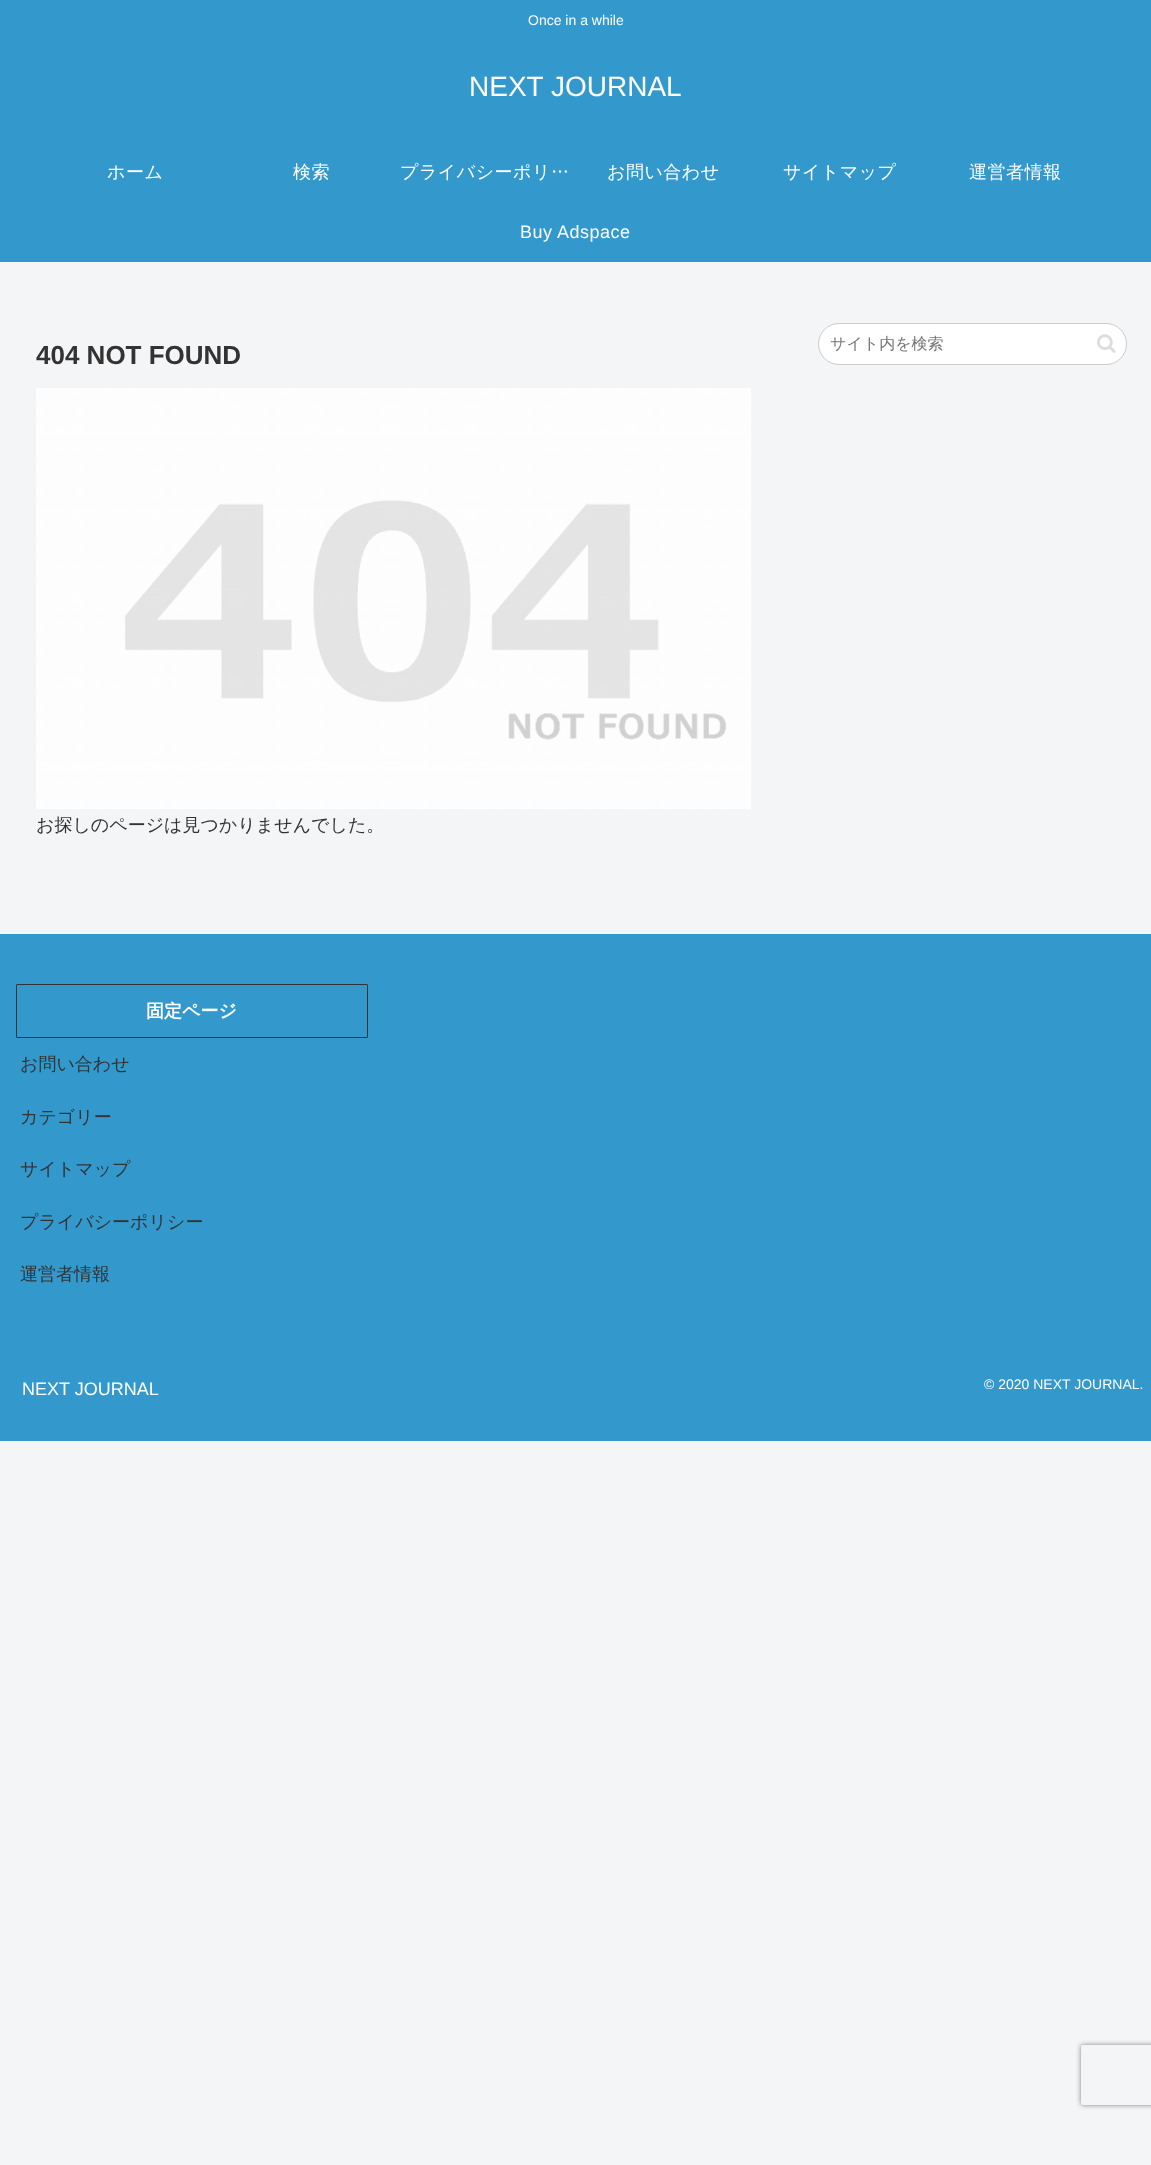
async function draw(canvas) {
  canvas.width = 1151
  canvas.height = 2165
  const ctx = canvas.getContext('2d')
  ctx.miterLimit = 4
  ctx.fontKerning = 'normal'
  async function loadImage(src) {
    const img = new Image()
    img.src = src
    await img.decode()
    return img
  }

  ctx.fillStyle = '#f4f5f7'
  ctx.fillRect(0, 0, 1151, 2165)
  ctx.fillStyle = '#39c'
  ctx.fillRect(0, 0, 1151, 262)
  ctx.font = '14px Liberation Sans'
  ctx.fillStyle = '#fff'
  ctx.fillText('Once in a while', 528, 25)
  ctx.font = '28px Liberation Sans'
  ctx.fillText('NEXT JOURNAL', 469, 96)
  ctx.letterSpacing = '0.5px'
  ctx.font = '500 18px WenQuanYi Zen Hei'
  ctx.fillText('ホーム', 107, 178)
  ctx.fillText('検索', 293, 178)
  ctx.fillText('プライバシーポリ…', 400, 178)
  ctx.fillText('お問い合わせ', 607, 178)
  ctx.fillText('サイトマップ', 783, 178)
  ctx.fillText('運営者情報', 969, 178)
  ctx.font = '18px Liberation Sans'
  ctx.fillText('Buy Adspace', 520, 238)
  ctx.letterSpacing = '0px'
  ctx.font = 'bold 26px Liberation Sans'
  ctx.fillStyle = '#333'
  ctx.fillText('404 NOT FOUND', 36, 364)
  ctx.drawImage(await loadImage('image0.png'), 36, 388, 715, 421)
  ctx.font = '500 18px WenQuanYi Zen Hei'
  ctx.fillText('お探しのページは見つかりませんでした。', 36, 831)
  ctx.fillStyle = '#fff'
  ctx.beginPath()
  ctx.roundRect(818.5, 323.5, 308, 41, 20.5)
  ctx.fill()
  ctx.strokeStyle = '#ccc'
  ctx.stroke()
  ctx.font = '500 16px WenQuanYi Zen Hei'
  ctx.fillStyle = '#757575'
  ctx.fillText('サイト内を検索', 830, 349)
  ctx.drawImage(await loadImage('image1.png'), 1097, 334, 19, 19)
  ctx.fillStyle = '#39c'
  ctx.fillRect(0, 934, 1151, 507)
  ctx.beginPath()
  ctx.roundRect(16.5, 984.5, 351, 53, 0.5)
  ctx.strokeStyle = '#333'
  ctx.stroke()
  ctx.font = 'bold 18px WenQuanYi Zen Hei'
  ctx.fillStyle = '#fff'
  ctx.fillText('固定ページ', 146, 1017)
  ctx.font = '500 18px WenQuanYi Zen Hei'
  ctx.fillStyle = '#333'
  ctx.fillText('お問い合わせ', 20, 1070)
  ctx.fillText('カテゴリー', 20, 1123)
  ctx.fillText('サイトマップ', 20, 1175)
  ctx.fillText('プライバシーポリシー', 20, 1228)
  ctx.fillText('運営者情報', 20, 1280)
  ctx.font = '18px Liberation Sans'
  ctx.fillStyle = '#fff'
  ctx.fillText('NEXT JOURNAL', 22, 1395)
  ctx.font = '14px Liberation Sans'
  ctx.fillText('© 2020 NEXT JOURNAL.', 984, 1389)
  ctx.save()
  ctx.beginPath()
  ctx.moveTo(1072, 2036)
  ctx.lineTo(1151, 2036)
  ctx.lineTo(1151, 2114)
  ctx.lineTo(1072, 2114)
  ctx.closePath()
  ctx.moveTo(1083, 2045)
  ctx.lineTo(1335, 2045)
  ctx.bezierCurveTo(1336, 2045, 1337, 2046, 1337, 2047)
  ctx.lineTo(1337, 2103)
  ctx.bezierCurveTo(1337, 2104, 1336, 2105, 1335, 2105)
  ctx.lineTo(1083, 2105)
  ctx.bezierCurveTo(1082, 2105, 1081, 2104, 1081, 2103)
  ctx.lineTo(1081, 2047)
  ctx.bezierCurveTo(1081, 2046, 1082, 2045, 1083, 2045)
  ctx.closePath()
  ctx.clip('evenodd')
  ctx.fillStyle = '#808080'
  ctx.filter = 'blur(2.5px)'
  ctx.beginPath()
  ctx.roundRect(1081, 2045, 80, 60, 2)
  ctx.fill()
  ctx.filter = 'none'
  ctx.restore()
}

draw(document.querySelector('canvas'))
